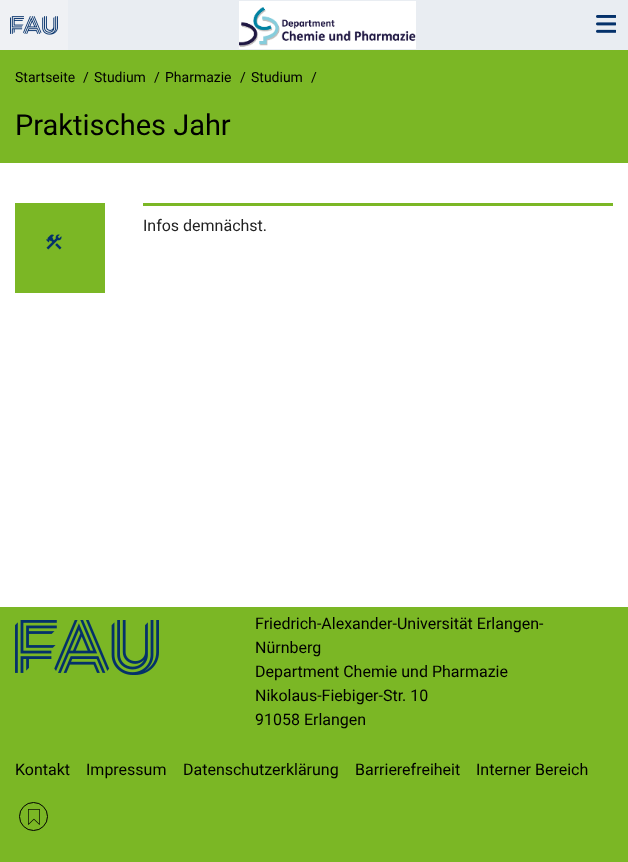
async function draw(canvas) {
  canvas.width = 628
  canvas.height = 862
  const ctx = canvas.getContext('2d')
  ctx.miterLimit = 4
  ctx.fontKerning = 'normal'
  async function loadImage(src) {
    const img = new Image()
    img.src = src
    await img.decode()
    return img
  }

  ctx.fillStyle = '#fff'
  ctx.fillRect(0, 0, 628, 862)
  ctx.fillStyle = '#e9edf2'
  ctx.fillRect(68, 0, 560, 50)
  ctx.fillStyle = '#eff1f4'
  ctx.fillRect(0, 0, 68, 50)
  ctx.drawImage(await loadImage('image0.png'), 10, 16, 48, 19)
  ctx.drawImage(await loadImage('image1.png'), 239, 1, 177, 48)
  ctx.drawImage(await loadImage('image2.png'), 596, 15, 20, 18)
  ctx.fillStyle = '#7bb725'
  ctx.fillRect(0, 50, 628, 113)
  ctx.font = '14px Roboto'
  ctx.fillStyle = '#000'
  ctx.fillText('Startseite', 15, 82)
  ctx.fillText('/', 83, 82)
  ctx.fillText('Studium', 94, 82)
  ctx.fillText('/', 154, 82)
  ctx.fillText('Pharmazie', 165, 82)
  ctx.fillText('/', 240, 82)
  ctx.fillText('Studium', 251, 82)
  ctx.fillText('/', 311, 82)
  ctx.font = '29px Roboto'
  ctx.fillText('Praktisches Jahr', 15, 135)
  ctx.fillStyle = '#7bb725'
  ctx.fillRect(15, 203, 90, 90)
  ctx.drawImage(await loadImage('image3.png'), 46, 234, 16, 16)
  ctx.fillRect(143, 203, 470, 3)
  ctx.font = '16px Roboto'
  ctx.fillStyle = '#222'
  ctx.fillText('Infos demnächst.', 143, 231)
  ctx.fillStyle = '#7bb725'
  ctx.fillRect(0, 607, 628, 255)
  ctx.drawImage(await loadImage('image4.png'), 15, 620, 144, 55)
  ctx.fillStyle = '#000'
  ctx.fillText('Friedrich-Alexander-Universität Erlangen-', 255, 629)
  ctx.fillText('Nürnberg', 255, 653)
  ctx.fillText('Department Chemie und Pharmazie', 255, 677)
  ctx.fillText('Nikolaus-Fiebiger-Str. 10', 255, 701)
  ctx.fillText('91058 Erlangen', 255, 725)
  ctx.fillText('Kontakt', 15, 775)
  ctx.fillText('Impressum', 86, 775)
  ctx.fillText('Datenschutzerklärung', 183, 775)
  ctx.fillText('Barrierefreiheit', 355, 775)
  ctx.fillText('Interner Bereich', 476, 775)
  ctx.beginPath()
  ctx.arc(33.5, 816.5, 14, 0, 2 * Math.PI)
  ctx.strokeStyle = '#000'
  ctx.stroke()
  ctx.drawImage(await loadImage('image5.png'), 28, 809, 12, 16)
}

draw(document.querySelector('canvas'))
